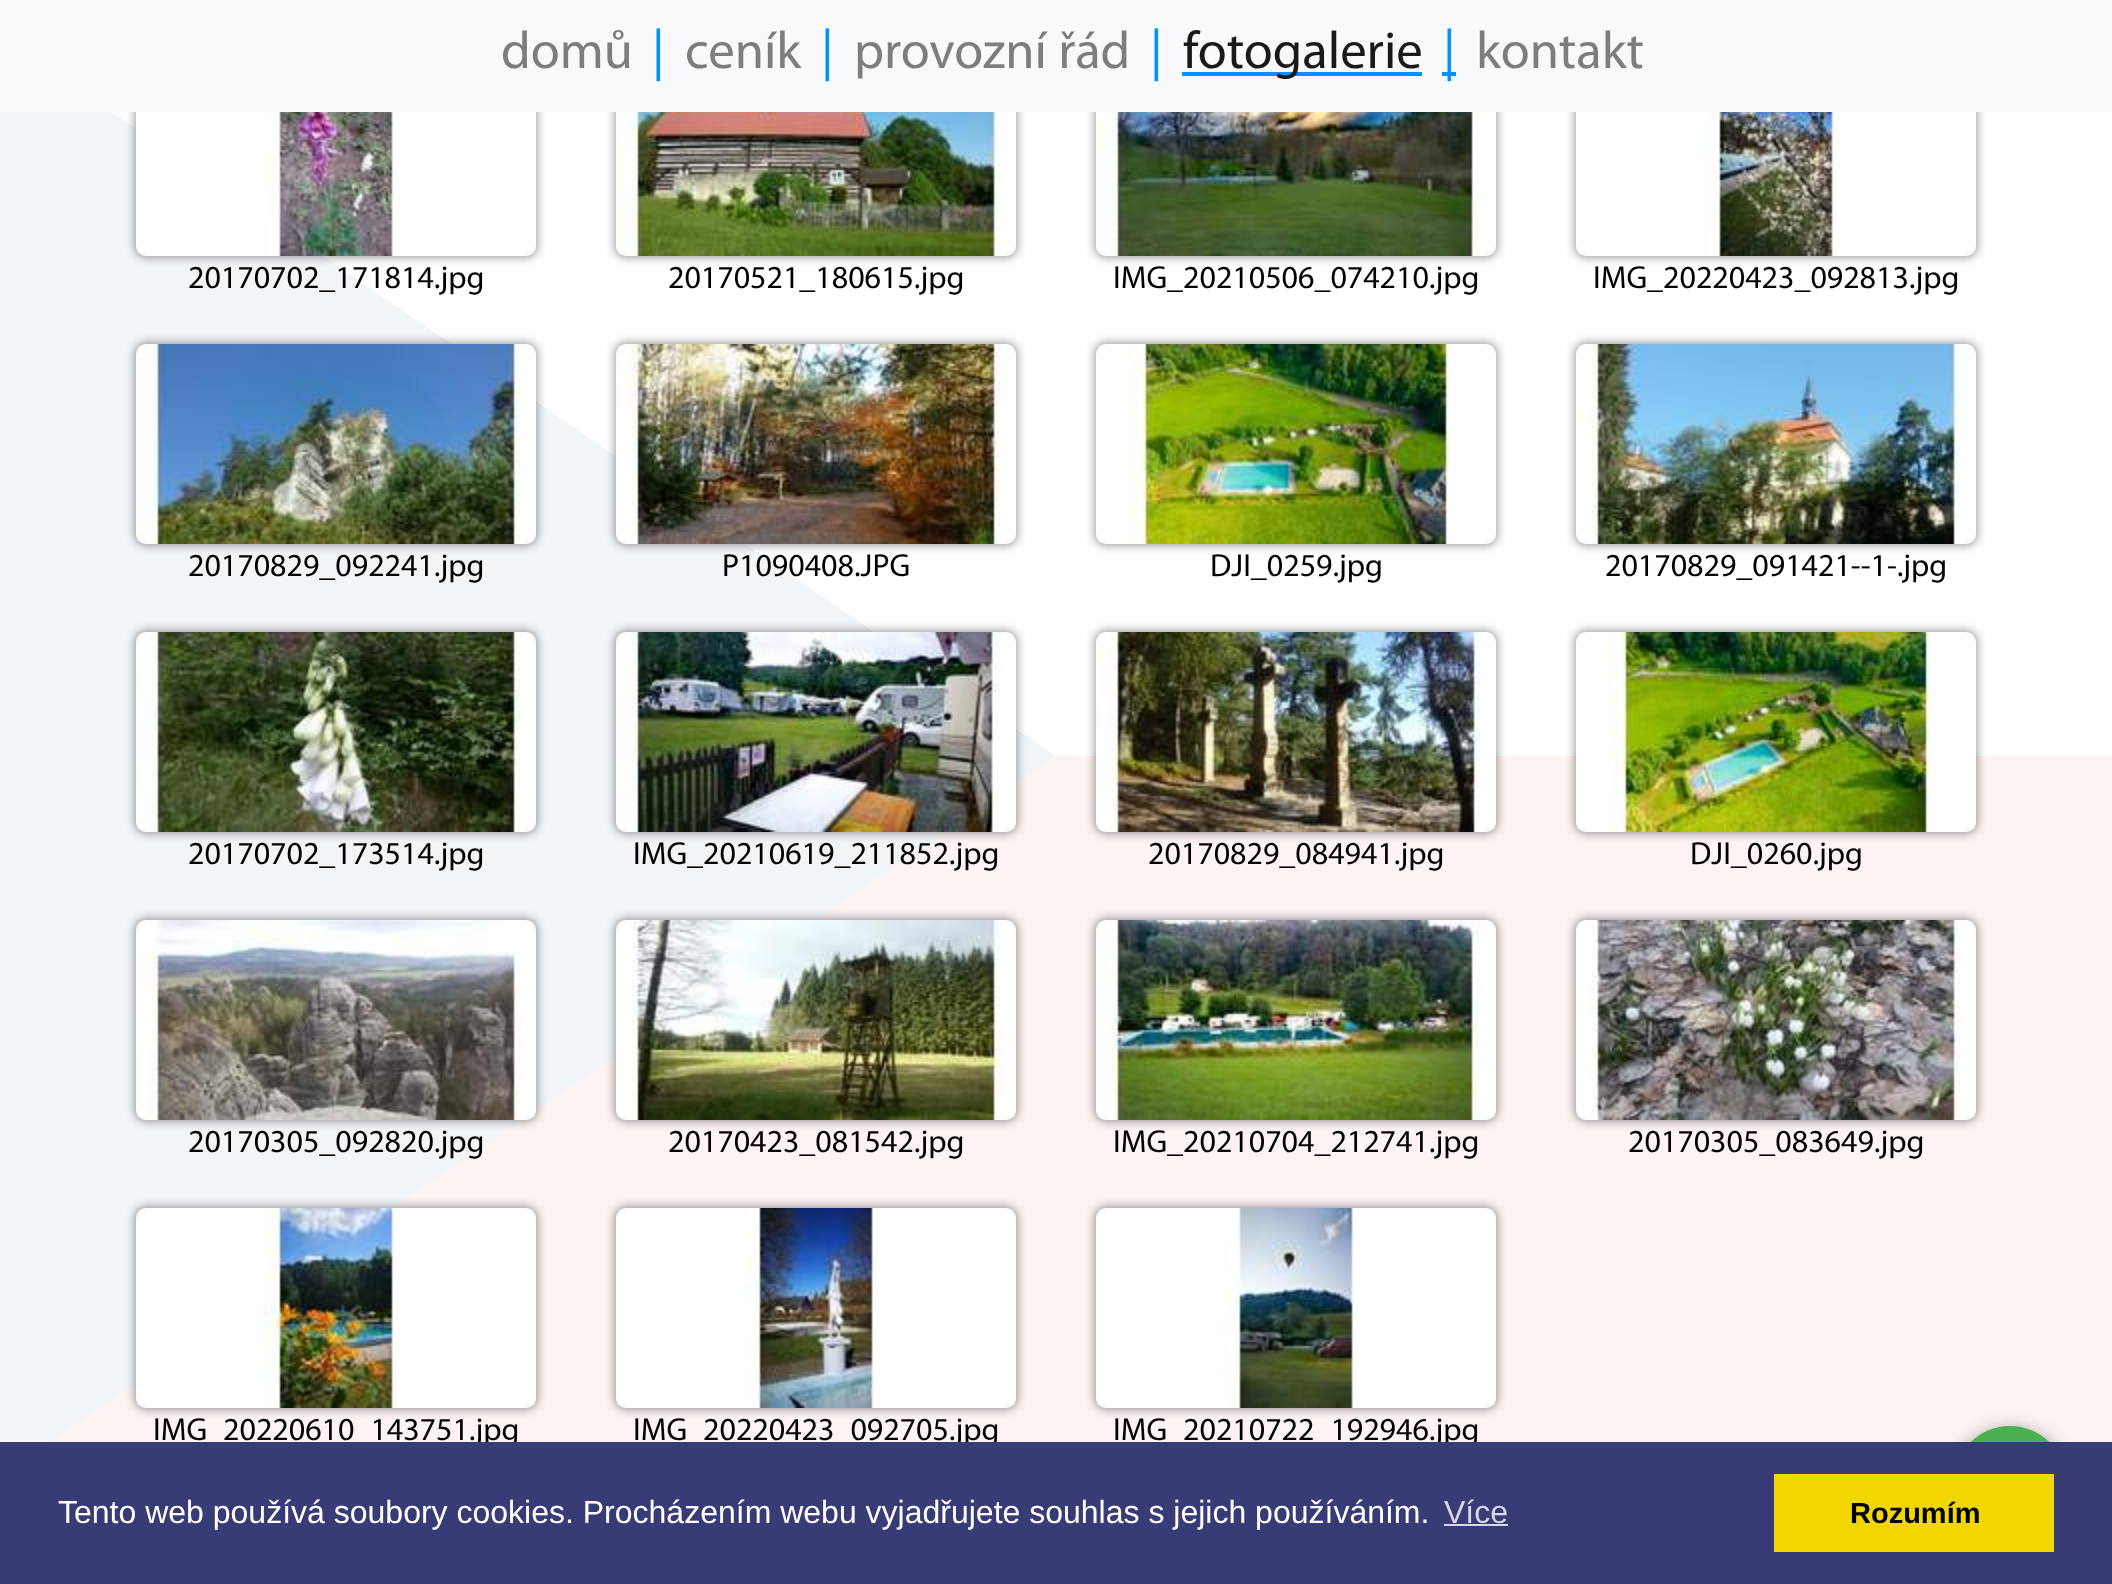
async function draw(canvas) {
  canvas.width = 2112
  canvas.height = 1584
  const ctx = canvas.getContext('2d')
  ctx.miterLimit = 4
  ctx.fontKerning = 'normal'
  async function loadImage(src) {
    const img = new Image()
    img.src = src
    await img.decode()
    return img
  }

  ctx.fillStyle = '#fff'
  ctx.fillRect(0, 0, 2112, 1584)
  ctx.drawImage(await loadImage('image19.png'), 0, 112, 2112, 1330)
  ctx.fillStyle = '#00000059'
  ctx.filter = 'blur(4px)'
  ctx.beginPath()
  ctx.roundRect(134, 54, 404, 204, 12)
  ctx.fill()
  ctx.filter = 'none'
  ctx.filter = 'blur(4px)'
  ctx.beginPath()
  ctx.roundRect(614, 54, 404, 204, 12)
  ctx.fill()
  ctx.filter = 'none'
  ctx.filter = 'blur(4px)'
  ctx.beginPath()
  ctx.roundRect(1094, 54, 404, 204, 12)
  ctx.fill()
  ctx.filter = 'none'
  ctx.filter = 'blur(4px)'
  ctx.beginPath()
  ctx.roundRect(1574, 54, 404, 204, 12)
  ctx.fill()
  ctx.filter = 'none'
  ctx.fillStyle = '#f8f9fa'
  ctx.fillRect(0, 0, 2112, 112)
  ctx.font = '52.75px Myriad'
  ctx.fillStyle = '#7c7d7d'
  ctx.fillText('domů', 501, 68)
  ctx.fillStyle = '#0092ff'
  ctx.fillText('|', 652, 68)
  ctx.fillStyle = '#7c7d7d'
  ctx.fillText('ceník', 685, 68)
  ctx.fillStyle = '#0092ff'
  ctx.fillText('|', 821, 68)
  ctx.fillStyle = '#7c7d7d'
  ctx.fillText('provozní řád', 854, 68)
  ctx.fillStyle = '#0092ff'
  ctx.fillText('|', 1150, 68)
  ctx.fillRect(1182, 72, 240, 4)
  ctx.fillStyle = '#181919'
  ctx.fillText('fotogalerie', 1183, 68)
  ctx.fillStyle = '#0092ff'
  ctx.fillRect(1442, 72, 14, 4)
  ctx.fillText('|', 1443, 68)
  ctx.fillStyle = '#7c7d7d'
  ctx.fillText('kontakt', 1476, 68)
  ctx.drawImage(await loadImage('image0.png'), 136, 112, 400, 144)
  ctx.font = '32px Myriad'
  ctx.fillStyle = '#000'
  ctx.fillText('20170702_171814.jpg', 188, 288)
  ctx.drawImage(await loadImage('image1.png'), 616, 112, 400, 144)
  ctx.fillText('20170521_180615.jpg', 668, 288)
  ctx.drawImage(await loadImage('image2.png'), 1096, 112, 400, 144)
  ctx.fillText('IMG_20210506_074210.jpg', 1113, 288)
  ctx.drawImage(await loadImage('image3.png'), 1576, 112, 400, 144)
  ctx.fillText('IMG_20220423_092813.jpg', 1593, 288)
  ctx.fillStyle = '#00000059'
  ctx.filter = 'blur(4px)'
  ctx.beginPath()
  ctx.roundRect(134, 342, 404, 204, 12)
  ctx.fill()
  ctx.filter = 'none'
  ctx.drawImage(await loadImage('image4.png'), 136, 344, 400, 200)
  ctx.fillStyle = '#000'
  ctx.fillText('20170829_092241.jpg', 188, 576)
  ctx.fillStyle = '#00000059'
  ctx.filter = 'blur(4px)'
  ctx.beginPath()
  ctx.roundRect(614, 342, 404, 204, 12)
  ctx.fill()
  ctx.filter = 'none'
  ctx.drawImage(await loadImage('image5.png'), 616, 344, 400, 200)
  ctx.fillStyle = '#000'
  ctx.fillText('P1090408.JPG', 722, 576)
  ctx.fillStyle = '#00000059'
  ctx.filter = 'blur(4px)'
  ctx.beginPath()
  ctx.roundRect(1094, 342, 404, 204, 12)
  ctx.fill()
  ctx.filter = 'none'
  ctx.drawImage(await loadImage('image6.png'), 1096, 344, 400, 200)
  ctx.fillStyle = '#000'
  ctx.fillText('DJI_0259.jpg', 1210, 576)
  ctx.fillStyle = '#00000059'
  ctx.filter = 'blur(4px)'
  ctx.beginPath()
  ctx.roundRect(1574, 342, 404, 204, 12)
  ctx.fill()
  ctx.filter = 'none'
  ctx.drawImage(await loadImage('image7.png'), 1576, 344, 400, 200)
  ctx.fillStyle = '#000'
  ctx.fillText('20170829_091421--1-.jpg', 1605, 576)
  ctx.fillStyle = '#00000059'
  ctx.filter = 'blur(4px)'
  ctx.beginPath()
  ctx.roundRect(134, 630, 404, 204, 12)
  ctx.fill()
  ctx.filter = 'none'
  ctx.drawImage(await loadImage('image8.png'), 136, 632, 400, 200)
  ctx.fillStyle = '#000'
  ctx.fillText('20170702_173514.jpg', 188, 864)
  ctx.fillStyle = '#00000059'
  ctx.filter = 'blur(4px)'
  ctx.beginPath()
  ctx.roundRect(614, 630, 404, 204, 12)
  ctx.fill()
  ctx.filter = 'none'
  ctx.drawImage(await loadImage('image9.png'), 616, 632, 400, 200)
  ctx.fillStyle = '#000'
  ctx.fillText('IMG_20210619_211852.jpg', 633, 864)
  ctx.fillStyle = '#00000059'
  ctx.filter = 'blur(4px)'
  ctx.beginPath()
  ctx.roundRect(1094, 630, 404, 204, 12)
  ctx.fill()
  ctx.filter = 'none'
  ctx.drawImage(await loadImage('image10.png'), 1096, 632, 400, 200)
  ctx.fillStyle = '#000'
  ctx.fillText('20170829_084941.jpg', 1148, 864)
  ctx.fillStyle = '#00000059'
  ctx.filter = 'blur(4px)'
  ctx.beginPath()
  ctx.roundRect(1574, 630, 404, 204, 12)
  ctx.fill()
  ctx.filter = 'none'
  ctx.drawImage(await loadImage('image11.png'), 1576, 632, 400, 200)
  ctx.fillStyle = '#000'
  ctx.fillText('DJI_0260.jpg', 1690, 864)
  ctx.fillStyle = '#00000059'
  ctx.filter = 'blur(4px)'
  ctx.beginPath()
  ctx.roundRect(134, 918, 404, 204, 12)
  ctx.fill()
  ctx.filter = 'none'
  ctx.drawImage(await loadImage('image12.png'), 136, 920, 400, 200)
  ctx.fillStyle = '#000'
  ctx.fillText('20170305_092820.jpg', 188, 1152)
  ctx.fillStyle = '#00000059'
  ctx.filter = 'blur(4px)'
  ctx.beginPath()
  ctx.roundRect(614, 918, 404, 204, 12)
  ctx.fill()
  ctx.filter = 'none'
  ctx.drawImage(await loadImage('image13.png'), 616, 920, 400, 200)
  ctx.fillStyle = '#000'
  ctx.fillText('20170423_081542.jpg', 668, 1152)
  ctx.fillStyle = '#00000059'
  ctx.filter = 'blur(4px)'
  ctx.beginPath()
  ctx.roundRect(1094, 918, 404, 204, 12)
  ctx.fill()
  ctx.filter = 'none'
  ctx.drawImage(await loadImage('image14.png'), 1096, 920, 400, 200)
  ctx.fillStyle = '#000'
  ctx.fillText('IMG_20210704_212741.jpg', 1113, 1152)
  ctx.fillStyle = '#00000059'
  ctx.filter = 'blur(4px)'
  ctx.beginPath()
  ctx.roundRect(1574, 918, 404, 204, 12)
  ctx.fill()
  ctx.filter = 'none'
  ctx.drawImage(await loadImage('image15.png'), 1576, 920, 400, 200)
  ctx.fillStyle = '#000'
  ctx.fillText('20170305_083649.jpg', 1628, 1152)
  ctx.fillStyle = '#00000059'
  ctx.filter = 'blur(4px)'
  ctx.beginPath()
  ctx.roundRect(134, 1206, 404, 204, 12)
  ctx.fill()
  ctx.filter = 'none'
  ctx.drawImage(await loadImage('image16.png'), 136, 1208, 400, 200)
  ctx.fillStyle = '#000'
  ctx.fillText('IMG_20220610_143751.jpg', 153, 1440)
  ctx.fillStyle = '#00000059'
  ctx.filter = 'blur(4px)'
  ctx.beginPath()
  ctx.roundRect(614, 1206, 404, 204, 12)
  ctx.fill()
  ctx.filter = 'none'
  ctx.drawImage(await loadImage('image17.png'), 616, 1208, 400, 200)
  ctx.fillStyle = '#000'
  ctx.fillText('IMG_20220423_092705.jpg', 633, 1440)
  ctx.fillStyle = '#00000059'
  ctx.filter = 'blur(4px)'
  ctx.beginPath()
  ctx.roundRect(1094, 1206, 404, 204, 12)
  ctx.fill()
  ctx.filter = 'none'
  ctx.drawImage(await loadImage('image18.png'), 1096, 1208, 400, 200)
  ctx.fillStyle = '#000'
  ctx.fillText('IMG_20210722_192946.jpg', 1113, 1440)
  ctx.fillStyle = '#00000080'
  ctx.filter = 'blur(10px)'
  ctx.beginPath()
  ctx.roundRect(1954, 1432, 112, 112, 56)
  ctx.fill()
  ctx.filter = 'none'
  ctx.fillStyle = '#4caf50'
  ctx.beginPath()
  ctx.arc(2010, 1482, 56, 0, 2 * Math.PI)
  ctx.fill()
  ctx.fillStyle = '#383b75'
  ctx.fillRect(0, 1442, 2112, 142)
  ctx.font = '32px Liberation Sans'
  ctx.fillStyle = '#fff'
  ctx.fillText('Tento web používá soubory cookies. Procházením webu vyjadřujete souhlas s jejich používáním.', 58, 1523)
  ctx.fillStyle = '#d7d8e3'
  ctx.fillText('Více', 1444, 1523)
  ctx.fillRect(1444, 1524, 64, 2)
  ctx.fillStyle = '#f1d600'
  ctx.fillRect(1774, 1474, 280, 78)
  ctx.font = 'bold 29px Liberation Sans'
  ctx.fillStyle = '#000'
  ctx.fillText('Rozumím', 1850, 1523)
}

draw(document.querySelector('canvas'))
